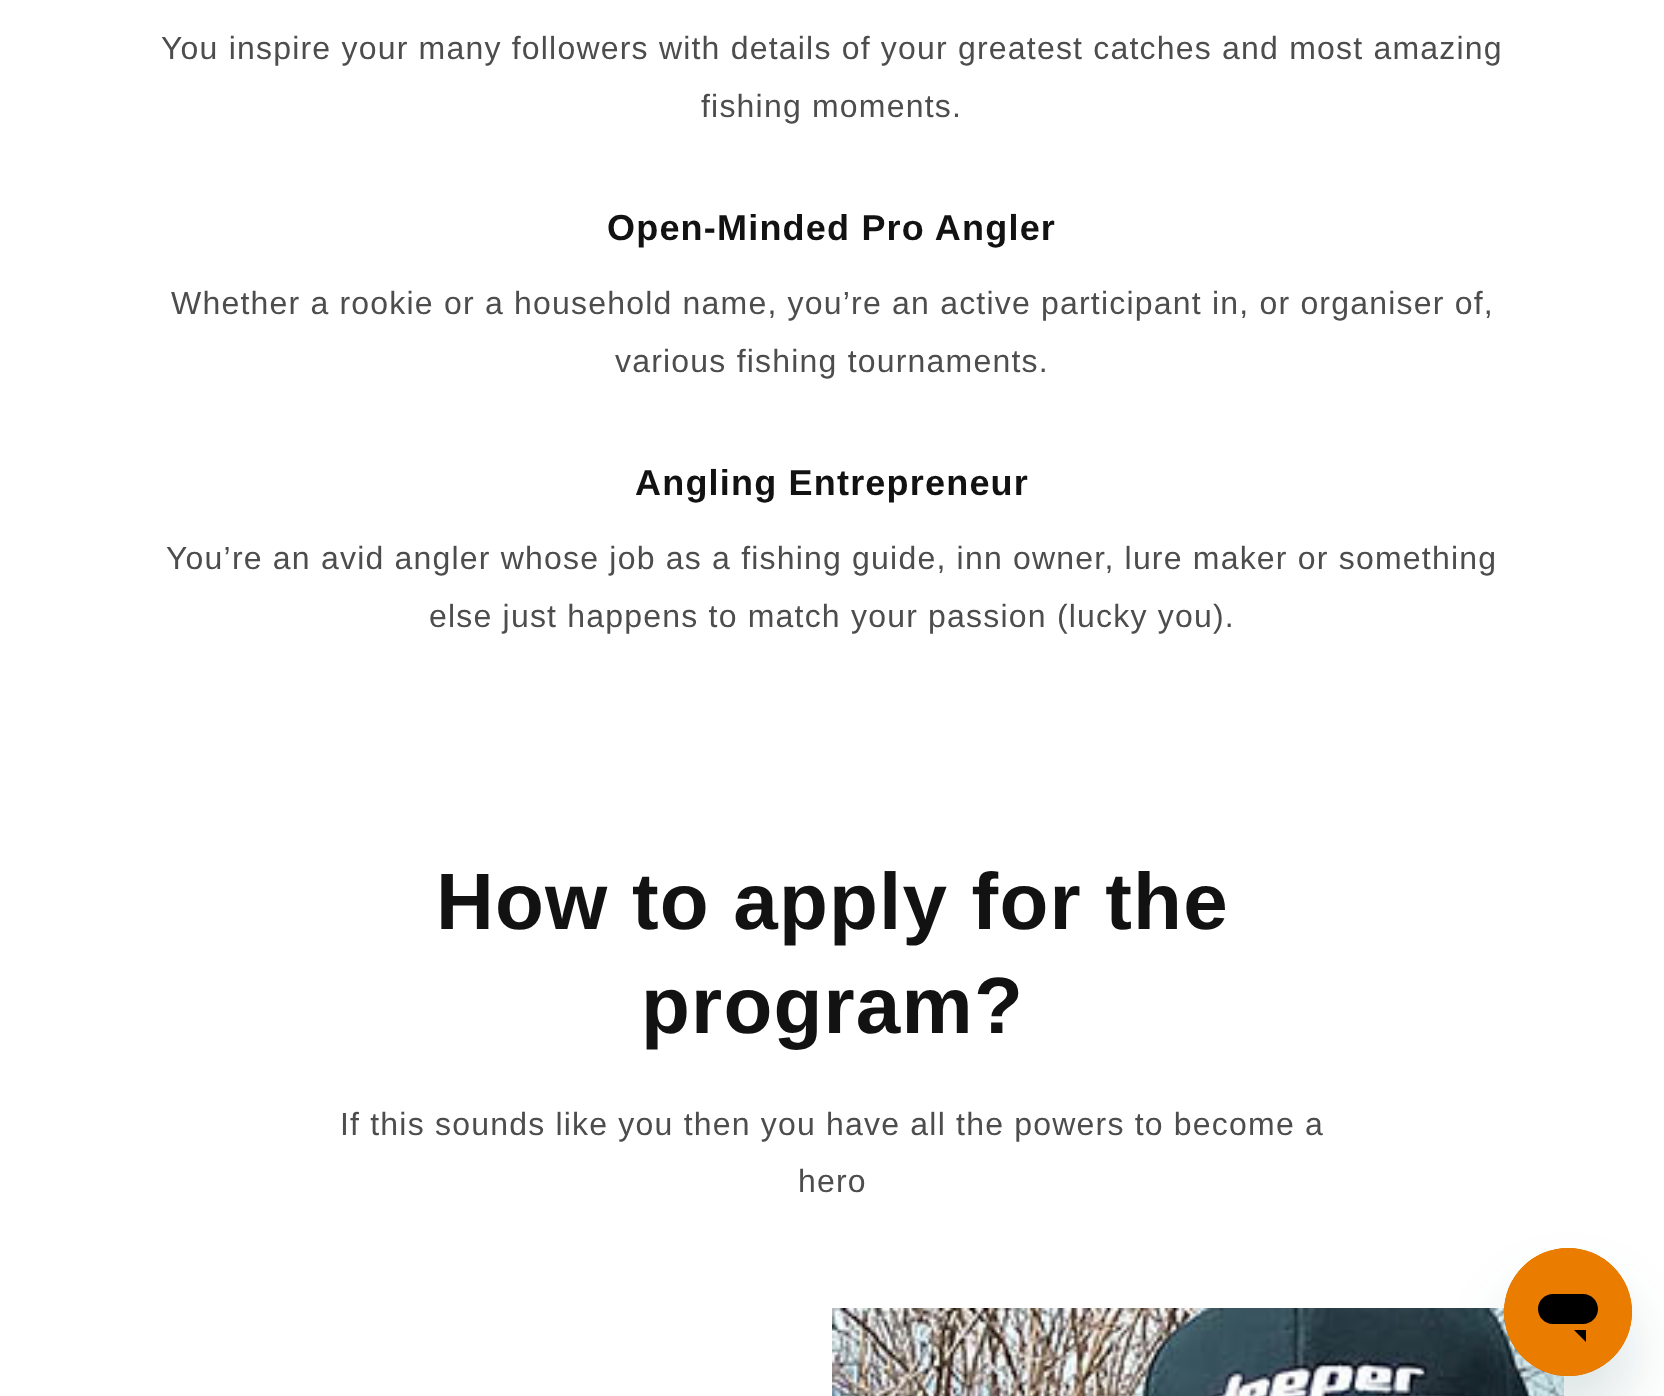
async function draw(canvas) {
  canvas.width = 1664
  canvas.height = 1396
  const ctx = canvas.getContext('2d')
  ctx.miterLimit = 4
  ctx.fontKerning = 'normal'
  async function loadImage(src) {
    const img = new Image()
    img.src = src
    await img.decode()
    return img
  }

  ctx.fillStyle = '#fff'
  ctx.fillRect(0, 0, 1664, 1396)
  ctx.letterSpacing = '1.2px'
  ctx.font = '32px Liberation Sans'
  ctx.fillStyle = '#4d4d4d'
  ctx.fillText('You inspire your many followers with details of your greatest catches and most amazing', 161, 59)
  ctx.fillText('fishing moments.', 701, 117)
  ctx.font = 'bold 36px Liberation Sans'
  ctx.fillStyle = '#121212'
  ctx.fillText('Open-Minded Pro Angler', 607, 240)
  ctx.font = '32px Liberation Sans'
  ctx.fillStyle = '#4d4d4d'
  ctx.fillText('Whether a rookie or a household name, you’re an active participant in, or organiser of,', 171, 314)
  ctx.fillText('various fishing tournaments.', 615, 372)
  ctx.font = 'bold 36px Liberation Sans'
  ctx.fillStyle = '#121212'
  ctx.fillText('Angling Entrepreneur', 635, 495)
  ctx.font = '32px Liberation Sans'
  ctx.fillStyle = '#4d4d4d'
  ctx.fillText('You’re an avid angler whose job as a fishing guide, inn owner, lure maker or something', 166, 569)
  ctx.fillText('else just happens to match your passion (lucky you).', 429, 627)
  ctx.font = 'bold 80px Liberation Sans'
  ctx.fillStyle = '#121212'
  ctx.fillText('How to apply for the', 436, 929)
  ctx.fillText('program?', 641, 1033)
  ctx.font = '32px Liberation Sans'
  ctx.fillStyle = '#4d4d4d'
  ctx.fillText('If this sounds like you then you have all the powers to become a', 340, 1135)
  ctx.fillText('hero', 798, 1192)
  ctx.drawImage(await loadImage('image0.png'), 832, 1308, 732, 88)
  ctx.fillStyle = '#17494d26'
  ctx.filter = 'blur(30px)'
  ctx.beginPath()
  ctx.roundRect(1504, 1288, 128, 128, 64)
  ctx.fill()
  ctx.filter = 'none'
  ctx.drawImage(await loadImage('image1.png'), 1504, 1248, 128, 128)
}

draw(document.querySelector('canvas'))
